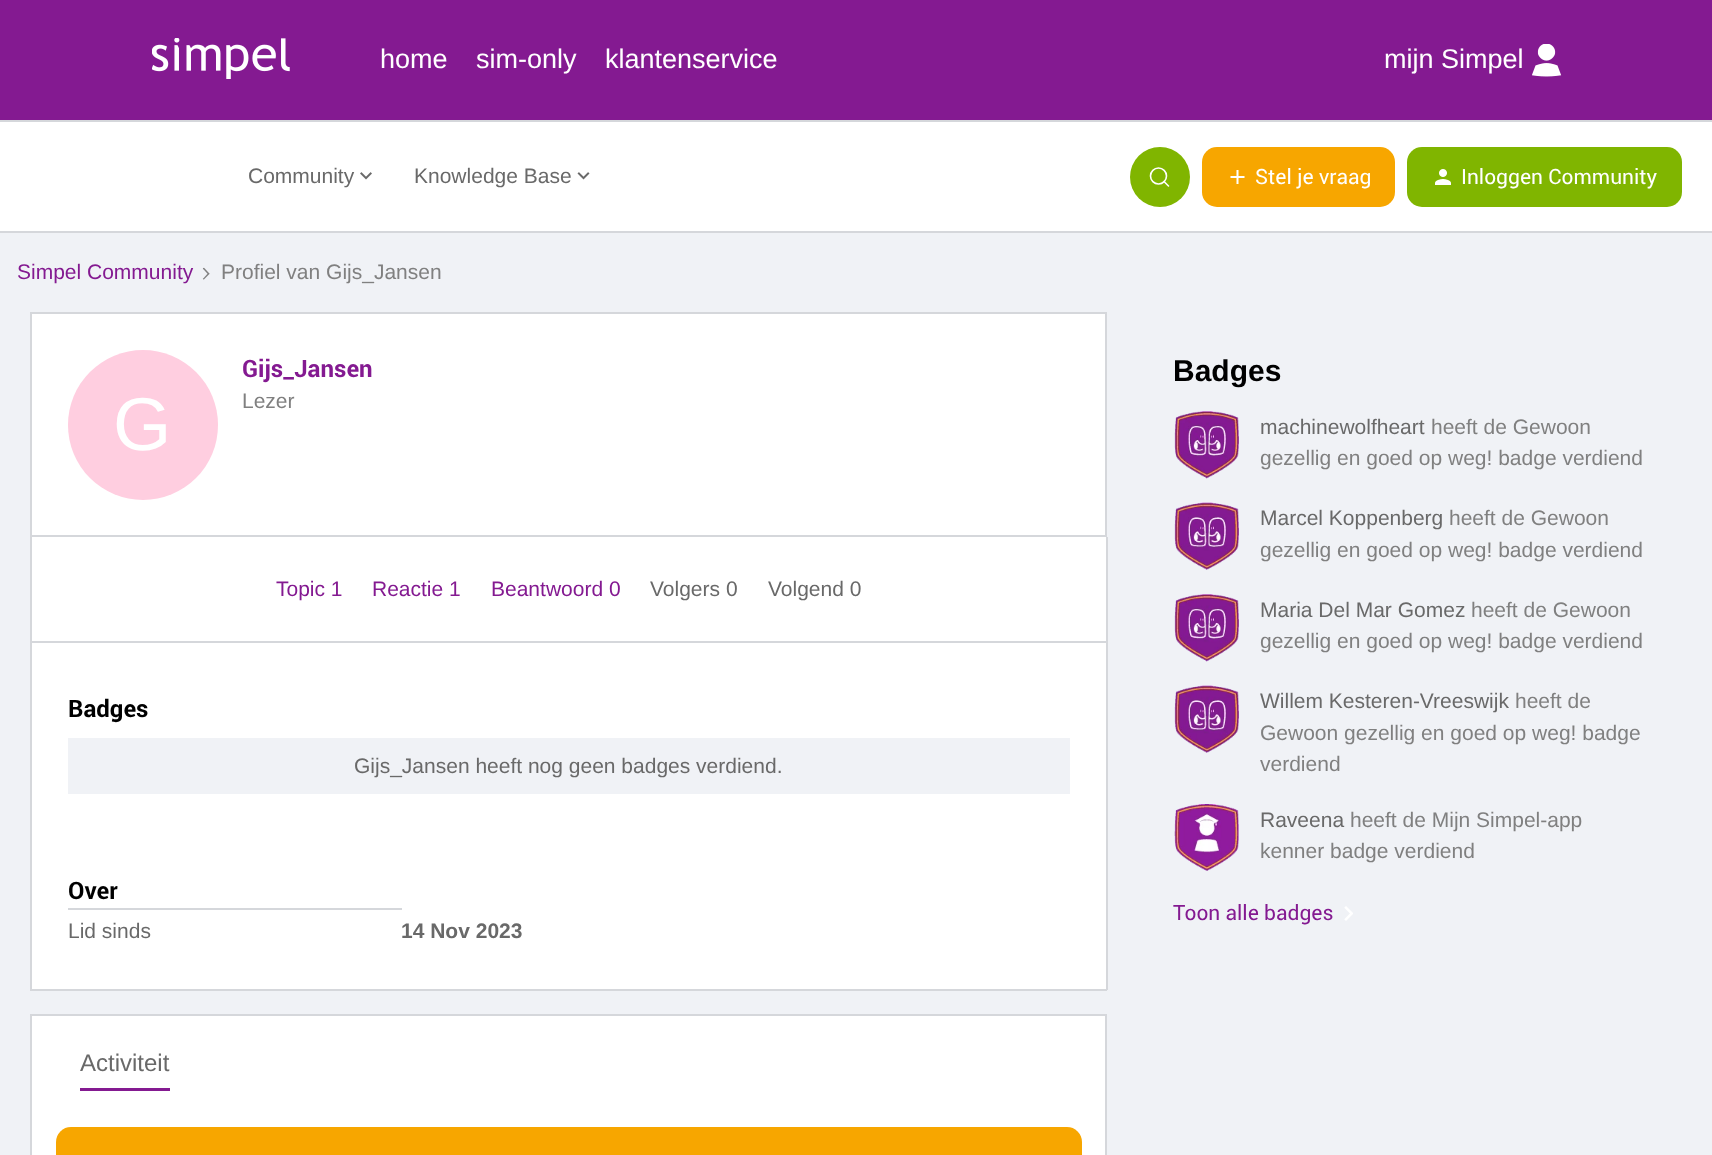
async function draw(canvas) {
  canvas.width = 1712
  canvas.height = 1155
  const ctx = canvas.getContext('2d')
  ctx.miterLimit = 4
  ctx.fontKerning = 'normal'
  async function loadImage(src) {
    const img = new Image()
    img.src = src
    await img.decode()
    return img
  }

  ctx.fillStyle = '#f0f2f6'
  ctx.fillRect(0, 0, 1712, 1155)
  ctx.fillStyle = '#841a91'
  ctx.fillRect(0, 0, 1712, 120)
  ctx.drawImage(await loadImage('image0.png'), 152, 38, 138, 41)
  ctx.font = '27px Liberation Sans'
  ctx.fillStyle = '#fff'
  ctx.fillText('home', 380, 68)
  ctx.fillText('sim-only', 476, 68)
  ctx.fillText('klantenservice', 605, 68)
  ctx.fillText('mijn Simpel', 1384, 68)
  ctx.drawImage(await loadImage('image1.png'), 1532, 44, 30, 33)
  ctx.fillRect(0, 122, 1712, 109)
  ctx.fillStyle = '#d5d7db'
  ctx.fillRect(0, 120, 1712, 2)
  ctx.fillRect(0, 231, 1712, 2)
  ctx.font = '21px Liberation Sans'
  ctx.fillStyle = '#696969'
  ctx.fillText('Community', 248, 183)
  ctx.drawImage(await loadImage('image2.png'), 360, 172, 12, 8)
  ctx.fillText('Knowledge Base', 414, 183)
  ctx.drawImage(await loadImage('image3.png'), 577, 172, 13, 8)
  ctx.fillStyle = '#80b500'
  ctx.beginPath()
  ctx.arc(1160, 177, 30, 0, 2 * Math.PI)
  ctx.fill()
  ctx.beginPath()
  ctx.arc(1158.5, 176, 8, 0, 2 * Math.PI)
  ctx.strokeStyle = '#fff'
  ctx.lineWidth = 1.6
  ctx.stroke()
  ctx.beginPath()
  ctx.moveTo(1164, 181.5)
  ctx.lineTo(1168.5, 186)
  ctx.lineCap = 'round'
  ctx.stroke()
  ctx.fillStyle = '#f7a600'
  ctx.beginPath()
  ctx.roundRect(1202, 147, 193, 60, 15)
  ctx.fill()
  ctx.drawImage(await loadImage('image4.png'), 1230, 170, 15, 14)
  ctx.font = '21px Roboto'
  ctx.fillStyle = '#fff'
  ctx.fillText('Stel je vraag', 1255, 184)
  ctx.fillStyle = '#80b500'
  ctx.beginPath()
  ctx.roundRect(1407, 147, 275, 60, 15)
  ctx.fill()
  ctx.drawImage(await loadImage('image5.png'), 1435, 169, 16, 16)
  ctx.fillStyle = '#fff'
  ctx.fillText('Inloggen Community', 1461, 184)
  ctx.font = '21px Liberation Sans'
  ctx.fillStyle = '#841a91'
  ctx.fillText('Simpel Community', 17, 279)
  ctx.drawImage(await loadImage('image6.png'), 202, 267, 8, 13)
  ctx.fillStyle = '#808080'
  ctx.fillText('Profiel van Gijs_Jansen', 221, 279)
  ctx.fillStyle = '#fff'
  ctx.beginPath()
  ctx.rect(31, 313, 1075, 223)
  ctx.fill()
  ctx.strokeStyle = '#d5d7db'
  ctx.lineWidth = 2
  ctx.stroke()
  ctx.font = 'bold 24px Roboto'
  ctx.fillStyle = '#841a91'
  ctx.fillText('Gijs_Jansen', 242, 377)
  ctx.font = '21px Liberation Sans'
  ctx.fillStyle = '#808080'
  ctx.fillText('Lezer', 242, 408)
  ctx.fillStyle = '#ffcee0'
  ctx.beginPath()
  ctx.arc(143, 425, 75, 0, 2 * Math.PI)
  ctx.fill()
  ctx.font = '75px Liberation Sans'
  ctx.fillStyle = '#fff'
  ctx.fillText('G', 113, 450)
  ctx.fillRect(32, 537, 1074, 104)
  ctx.fillStyle = '#d5d7db'
  ctx.fillRect(1106, 537, 2, 453)
  ctx.fillRect(30, 642, 2, 188)
  ctx.fillRect(30, 641, 1077, 2)
  ctx.fillRect(30, 537, 2, 105)
  ctx.font = '21px Liberation Sans'
  ctx.fillStyle = '#841a91'
  ctx.fillText('Topic 1', 276, 596)
  ctx.fillText('Reactie 1', 372, 596)
  ctx.fillText('Beantwoord 0', 491, 596)
  ctx.fillStyle = '#696969'
  ctx.fillText('Volgers 0', 650, 596)
  ctx.fillText('Volgend 0', 768, 596)
  ctx.fillStyle = '#fff'
  ctx.fillRect(32, 643, 1074, 346)
  ctx.font = 'bold 24px Roboto'
  ctx.fillStyle = '#000'
  ctx.fillText('Badges', 68, 717)
  ctx.fillStyle = '#f0f2f6'
  ctx.fillRect(68, 738, 1002, 56)
  ctx.font = '21px Liberation Sans'
  ctx.fillStyle = '#696969'
  ctx.fillText('Gijs_Jansen heeft nog geen badges verdiend.', 354, 773)
  ctx.fillStyle = '#d5d7db'
  ctx.fillRect(30, 989, 1077, 2)
  ctx.fillRect(30, 830, 2, 160)
  ctx.fillRect(68, 908, 334, 2)
  ctx.font = 'bold 24px Roboto'
  ctx.fillStyle = '#000'
  ctx.fillText('Over', 68, 899)
  ctx.font = '21px Liberation Sans'
  ctx.fillStyle = '#696969'
  ctx.fillText('Lid sinds', 68, 938)
  ctx.font = 'bold 21px Liberation Sans'
  ctx.fillText('14 Nov 2023', 401, 938)
  ctx.fillStyle = '#fff'
  ctx.beginPath()
  ctx.rect(31, 1015, 1075, 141)
  ctx.fill()
  ctx.stroke()
  ctx.fillStyle = '#841a91'
  ctx.fillRect(80, 1088, 90, 3)
  ctx.font = '24px Liberation Sans'
  ctx.fillStyle = '#696969'
  ctx.fillText('Activiteit', 80, 1071)
  ctx.fillStyle = '#f7a600'
  ctx.beginPath()
  ctx.roundRect(56, 1127, 1026, 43, 15)
  ctx.fill()
  ctx.font = 'bold 30px Liberation Sans'
  ctx.fillStyle = '#000'
  ctx.fillText('Badges', 1173, 381)
  ctx.drawImage(await loadImage('image7.png'), 1174, 411, 65, 68)
  ctx.font = '21px Liberation Sans'
  ctx.fillStyle = '#696969'
  ctx.fillText('machinewolfheart', 1260, 434)
  ctx.fillStyle = '#808080'
  ctx.fillText('heeft de Gewoon', 1431, 434)
  ctx.fillText('gezellig en goed op weg! badge verdiend', 1260, 465)
  ctx.drawImage(await loadImage('image8.png'), 1174, 502, 65, 68)
  ctx.fillStyle = '#696969'
  ctx.fillText('Marcel Koppenberg', 1260, 525)
  ctx.fillStyle = '#808080'
  ctx.fillText('heeft de Gewoon', 1449, 525)
  ctx.fillText('gezellig en goed op weg! badge verdiend', 1260, 557)
  ctx.drawImage(await loadImage('image7.png'), 1174, 594, 65, 68)
  ctx.fillStyle = '#696969'
  ctx.fillText('Maria Del Mar Gomez', 1260, 617)
  ctx.fillStyle = '#808080'
  ctx.fillText('heeft de Gewoon', 1471, 617)
  ctx.fillText('gezellig en goed op weg! badge verdiend', 1260, 648)
  ctx.drawImage(await loadImage('image8.png'), 1174, 685, 65, 68)
  ctx.fillStyle = '#696969'
  ctx.fillText('Willem Kesteren-Vreeswijk', 1260, 708)
  ctx.fillStyle = '#808080'
  ctx.fillText('heeft de', 1515, 708)
  ctx.fillText('Gewoon gezellig en goed op weg! badge', 1260, 740)
  ctx.fillText('verdiend', 1260, 771)
  ctx.drawImage(await loadImage('image9.png'), 1174, 804, 65, 67)
  ctx.fillStyle = '#696969'
  ctx.fillText('Raveena', 1260, 827)
  ctx.fillStyle = '#808080'
  ctx.fillText('heeft de Mijn Simpel-app', 1350, 827)
  ctx.fillText('kenner badge verdiend', 1260, 858)
  ctx.font = '21px Roboto'
  ctx.fillStyle = '#841a91'
  ctx.fillText('Toon alle badges', 1173, 920)
  ctx.drawImage(await loadImage('image10.png'), 1344, 906, 9, 15)
}

draw(document.querySelector('canvas'))
